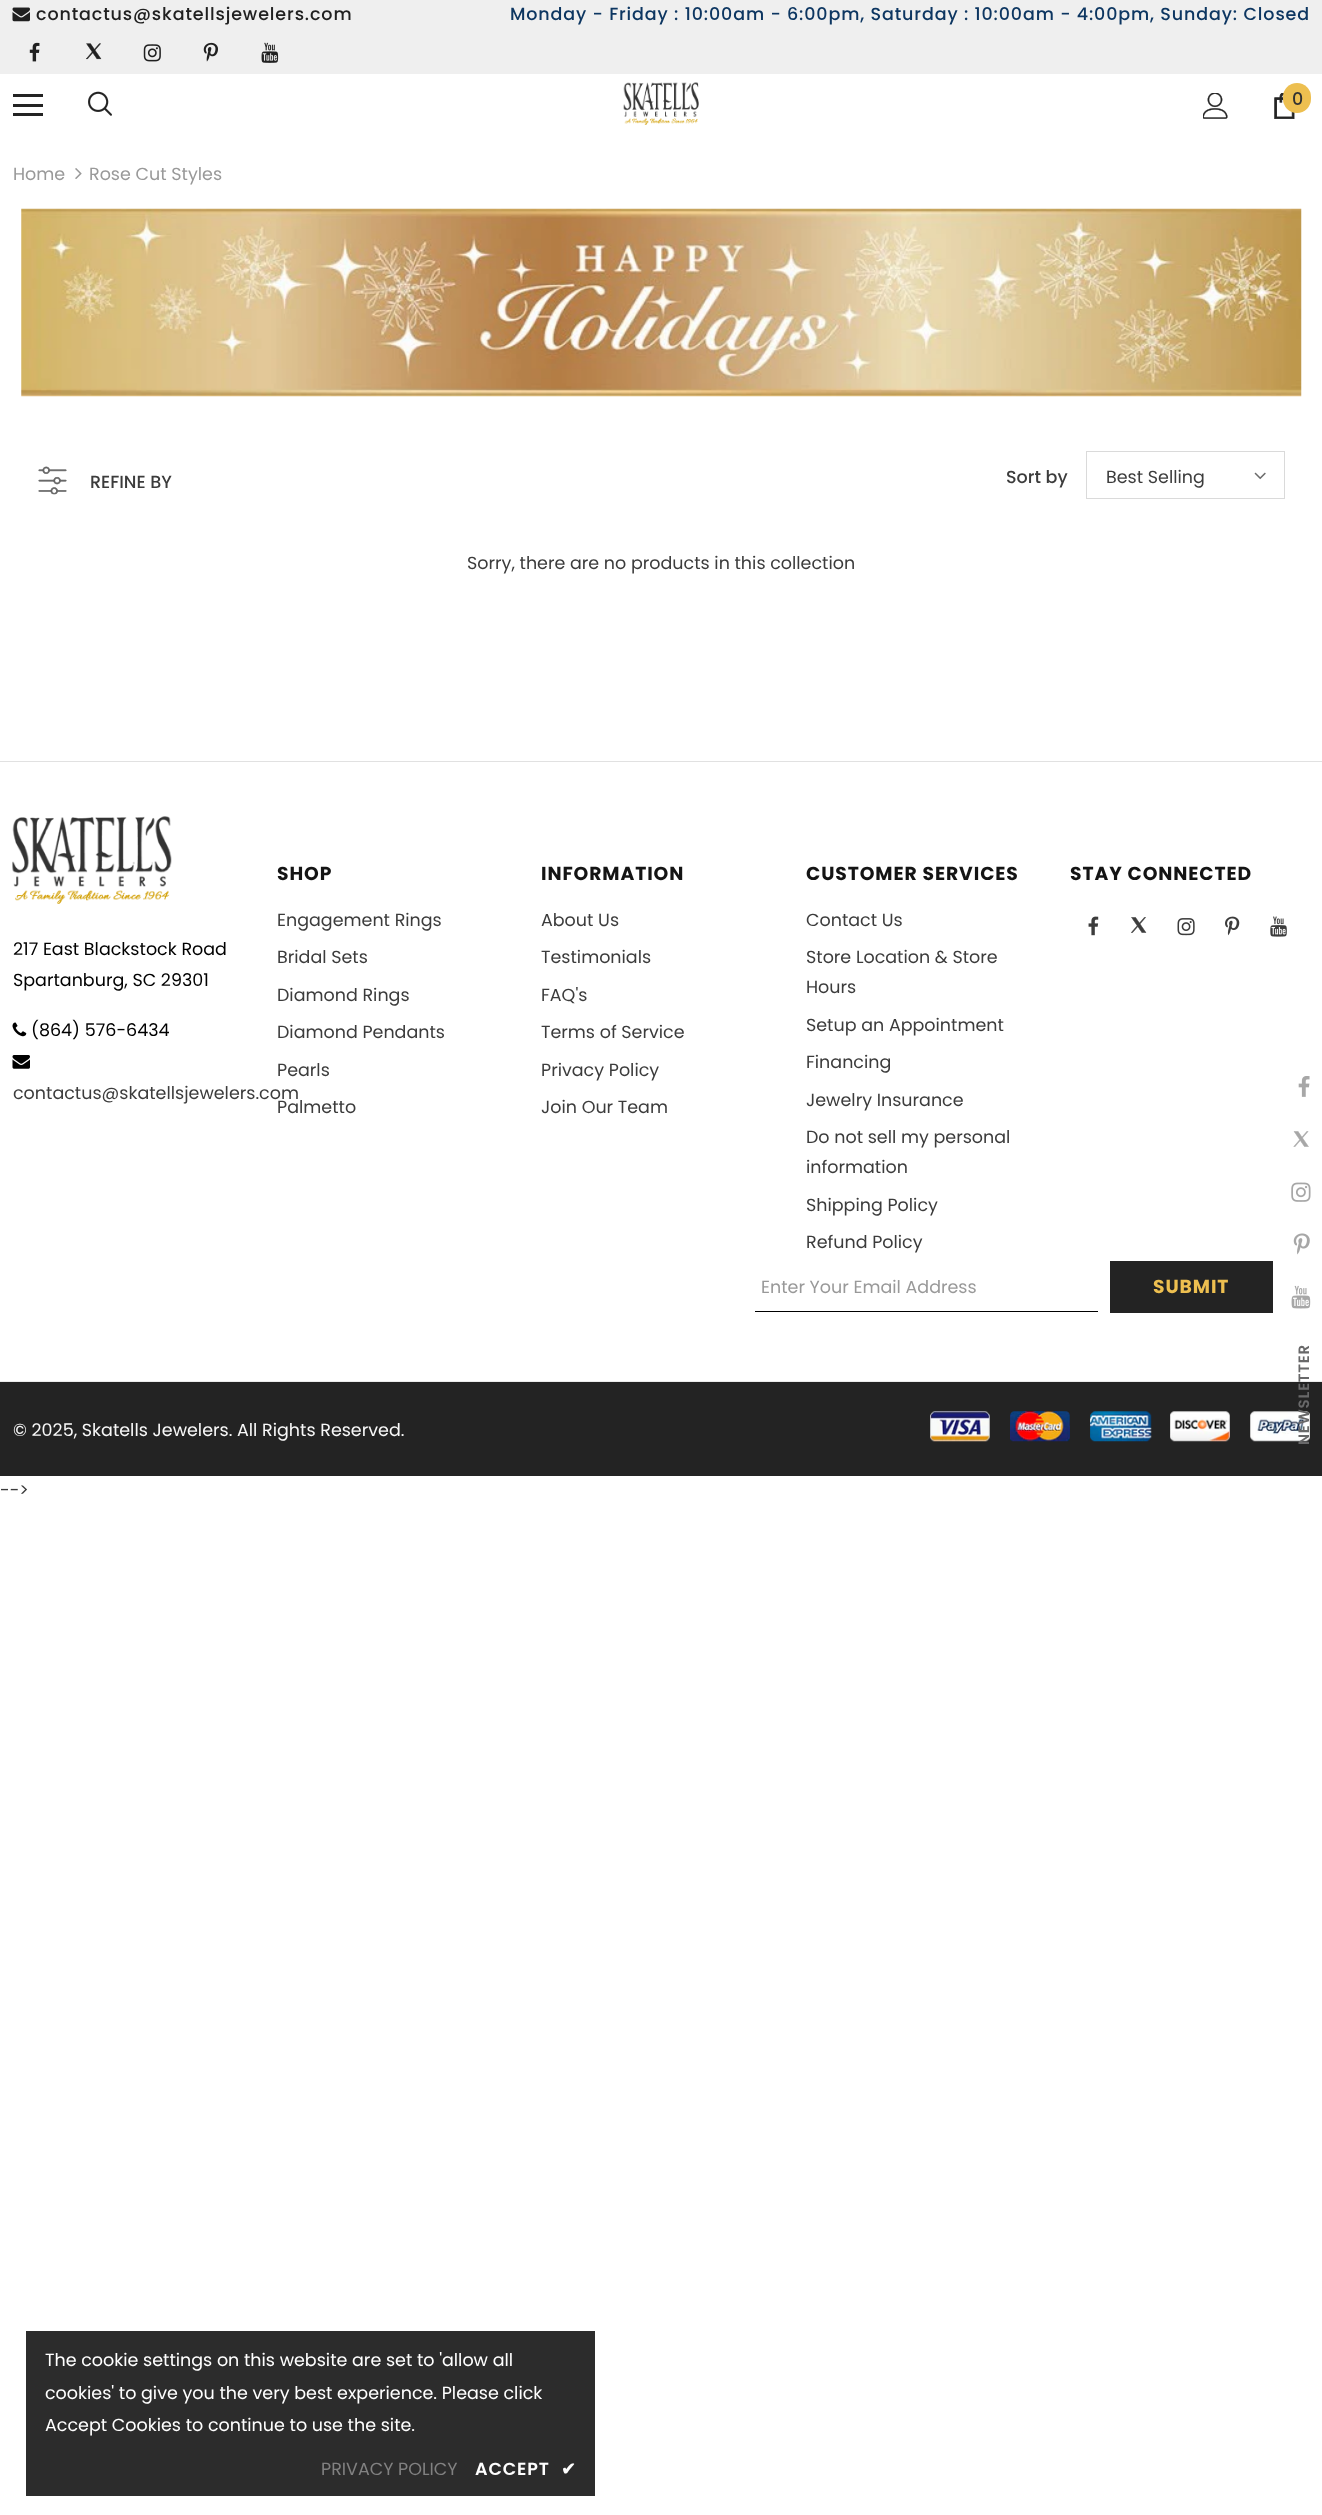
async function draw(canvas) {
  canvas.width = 1322
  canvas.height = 2515
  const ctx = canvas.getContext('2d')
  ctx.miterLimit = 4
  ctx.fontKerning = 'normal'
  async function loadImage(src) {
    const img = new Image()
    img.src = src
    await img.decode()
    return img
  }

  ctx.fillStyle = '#fff'
  ctx.fillRect(0, 0, 1322, 2515)
  ctx.fillStyle = '#efefef'
  ctx.fillRect(0, 0, 1322, 74)
  ctx.drawImage(await loadImage('image0.png'), 12, 7, 18, 15)
  ctx.letterSpacing = '0.88px'
  ctx.font = '500 17.5px Poppins'
  ctx.fillStyle = '#202020'
  ctx.fillText('contactus@skatellsjewelers.com', 36, 20)
  ctx.fillStyle = '#0d3661'
  ctx.fillText('Monday - Friday : 10:00am - 6:00pm, Saturday : 10:00am - 4:00pm, Sunday: Closed', 510, 20)
  ctx.drawImage(await loadImage('image1.png'), 29, 42, 11, 20)
  ctx.drawImage(await loadImage('image2.png'), 86, 43, 16, 17)
  ctx.drawImage(await loadImage('image3.png'), 143, 44, 18, 18)
  ctx.drawImage(await loadImage('image4.png'), 203, 42, 15, 20)
  ctx.drawImage(await loadImage('image5.png'), 261, 42, 18, 21)
  ctx.fillStyle = '#232323'
  ctx.fillRect(13, 94, 30, 3)
  ctx.fillRect(13, 104, 30, 3)
  ctx.fillRect(13, 113, 30, 3)
  ctx.drawImage(await loadImage('image6.png'), 88, 91, 24, 25)
  ctx.drawImage(await loadImage('image7.png'), 623, 82, 76, 43)
  ctx.drawImage(await loadImage('image8.png'), 1203, 93, 25, 26)
  ctx.drawImage(await loadImage('image9.png'), 1274, 93, 21, 26)
  ctx.fillStyle = '#edbf50'
  ctx.beginPath()
  ctx.roundRect(1283, 83, 28, 30, 14)
  ctx.fill()
  ctx.letterSpacing = '0px'
  ctx.fillStyle = '#323232'
  ctx.fillText('0', 1292, 105)
  ctx.font = '17.5px Poppins'
  ctx.fillStyle = '#999'
  ctx.fillText('Home', 13, 180)
  ctx.drawImage(await loadImage('image10.png'), 75, 168, 7, 11)
  ctx.fillText('Rose Cut Styles', 89, 180)
  ctx.drawImage(await loadImage('image11.png'), 21, 208, 1281, 189)
  ctx.drawImage(await loadImage('image12.png'), 38, 466, 29, 29)
  ctx.font = '500 17.5px Poppins'
  ctx.fillStyle = '#3c3c3c'
  ctx.fillText('REFINE BY', 90, 488)
  ctx.fillText('Sort by', 1006, 483)
  ctx.strokeStyle = '#dadada'
  ctx.strokeRect(1086.5, 451.5, 198, 47)
  ctx.font = '17.5px Poppins'
  ctx.fillText('Best Selling', 1106, 483)
  ctx.drawImage(await loadImage('image13.png'), 1254, 472, 12, 8)
  ctx.fillText('Sorry, there are no products in this collection', 467, 569)
  ctx.fillStyle = '#e1e1e1'
  ctx.fillRect(0, 761, 1322, 1)
  ctx.letterSpacing = '0.9px'
  ctx.font = 'bold 18.75px Poppins'
  ctx.fillStyle = '#141414'
  ctx.fillText('SHOP', 277, 880)
  ctx.letterSpacing = '0px'
  ctx.font = '17.5px Poppins'
  ctx.fillStyle = '#3c3c3c'
  ctx.fillText('Engagement Rings', 277, 926)
  ctx.fillText('Bridal Sets', 277, 963)
  ctx.fillText('Diamond Rings', 277, 1001)
  ctx.fillText('Diamond Pendants', 277, 1038)
  ctx.fillText('Pearls', 277, 1076)
  ctx.fillText('Palmetto', 277, 1113)
  ctx.letterSpacing = '0.9px'
  ctx.font = 'bold 18.75px Poppins'
  ctx.fillStyle = '#141414'
  ctx.fillText('INFORMATION', 541, 880)
  ctx.letterSpacing = '0px'
  ctx.font = '17.5px Poppins'
  ctx.fillStyle = '#3c3c3c'
  ctx.fillText('About Us', 541, 926)
  ctx.fillText('Testimonials', 541, 963)
  ctx.fillText('FAQ\'s', 541, 1001)
  ctx.fillText('Terms of Service', 541, 1038)
  ctx.fillText('Privacy Policy', 541, 1076)
  ctx.fillText('Join Our Team', 541, 1113)
  ctx.letterSpacing = '0.9px'
  ctx.font = 'bold 18.75px Poppins'
  ctx.fillStyle = '#141414'
  ctx.fillText('CUSTOMER SERVICES', 806, 880)
  ctx.letterSpacing = '0px'
  ctx.font = '17.5px Poppins'
  ctx.fillStyle = '#3c3c3c'
  ctx.fillText('Contact Us', 806, 926)
  ctx.fillText('Store Location & Store', 806, 963)
  ctx.fillText('Hours', 806, 993)
  ctx.fillText('Setup an Appointment', 806, 1031)
  ctx.fillText('Financing', 806, 1068)
  ctx.fillText('Jewelry Insurance', 806, 1106)
  ctx.fillText('Do not sell my personal', 806, 1143)
  ctx.fillText('information', 806, 1173)
  ctx.fillText('Shipping Policy', 806, 1211)
  ctx.fillText('Refund Policy', 806, 1248)
  ctx.letterSpacing = '0.9px'
  ctx.font = 'bold 18.75px Poppins'
  ctx.fillStyle = '#141414'
  ctx.fillText('STAY CONNECTED', 1070, 880)
  ctx.drawImage(await loadImage('image14.png'), 1088, 916, 11, 20)
  ctx.drawImage(await loadImage('image15.png'), 1131, 917, 16, 16)
  ctx.drawImage(await loadImage('image16.png'), 1177, 918, 18, 18)
  ctx.drawImage(await loadImage('image17.png'), 1225, 916, 15, 20)
  ctx.drawImage(await loadImage('image18.png'), 1270, 916, 17, 21)
  ctx.drawImage(await loadImage('image19.png'), 12, 816, 160, 88)
  ctx.letterSpacing = '0px'
  ctx.font = '17.5px Poppins'
  ctx.fillStyle = '#000'
  ctx.fillText('217 East Blackstock Road', 13, 955)
  ctx.fillText('Spartanburg, SC 29301', 13, 986)
  ctx.drawImage(await loadImage('image20.png'), 12, 1022, 15, 15)
  ctx.fillText('(864) 576-6434', 31, 1036)
  ctx.drawImage(await loadImage('image21.png'), 12, 1055, 18, 14)
  ctx.fillStyle = '#3c3c3c'
  ctx.fillText('contactus@skatellsjewelers.com', 13, 1099)
  ctx.fillStyle = '#000'
  ctx.fillRect(755, 1311, 343, 1)
  ctx.fillStyle = '#999'
  ctx.fillText('Enter Your Email Address', 761, 1293)
  ctx.fillStyle = '#232323'
  ctx.fillRect(1110, 1261, 163, 52)
  ctx.letterSpacing = '0.9px'
  ctx.font = 'bold 18.75px Poppins'
  ctx.fillStyle = '#edbf50'
  ctx.fillText('SUBMIT', 1153, 1293)
  ctx.fillStyle = '#232323'
  ctx.fillRect(0, 1382, 1322, 94)
  ctx.fillStyle = '#ebebeb'
  ctx.fillRect(0, 1381, 1322, 1)
  ctx.letterSpacing = '0px'
  ctx.font = '17.5px Poppins'
  ctx.fillStyle = '#f8f8f8'
  ctx.fillText('© 2025, Skatells Jewelers. All Rights Reserved.', 13, 1436)
  ctx.drawImage(await loadImage('image22.png'), 930, 1411, 60, 31)
  ctx.drawImage(await loadImage('image23.png'), 1010, 1411, 60, 31)
  ctx.drawImage(await loadImage('image24.png'), 1090, 1411, 62, 31)
  ctx.drawImage(await loadImage('image25.png'), 1170, 1411, 60, 31)
  ctx.drawImage(await loadImage('image26.png'), 1250, 1411, 60, 31)
  ctx.fillStyle = '#2c2c2c'
  ctx.fillRect(26, 2331, 569, 165)
  ctx.fillStyle = '#fff'
  ctx.fillText('The cookie settings on this website are set to \'allow all', 45, 2366)
  ctx.fillText('cookies\' to give you the very best experience. Please click', 45, 2399)
  ctx.fillText('Accept Cookies to continue to use the site.', 45, 2431)
  ctx.fillStyle = '#818181'
  ctx.fillText('PRIVACY POLICY', 321, 2475)
  ctx.letterSpacing = '0.88px'
  ctx.font = '600 17.5px Poppins'
  ctx.fillStyle = '#fff'
  ctx.fillText('ACCEPT', 475, 2475)
  ctx.font = 'bold 17.5px DejaVu Sans'
  ctx.fillText('✔', 561, 2475)
  ctx.drawImage(await loadImage('image27.png'), 1298, 1076, 12, 21)
  ctx.drawImage(await loadImage('image28.png'), 1293, 1131, 16, 16)
  ctx.drawImage(await loadImage('image29.png'), 1291, 1182, 20, 20)
  ctx.drawImage(await loadImage('image30.png'), 1293, 1233, 17, 22)
  ctx.drawImage(await loadImage('image31.png'), 1291, 1285, 20, 24)
  ctx.letterSpacing = '0.75px'
  ctx.font = '600 15px Poppins'
  ctx.fillStyle = '#686869'
  ctx.save()
  ctx.translate(1309, 1445)
  ctx.rotate(-90 * Math.PI / 180)
  ctx.fillText('NEWSLETTER', 0, 0)
  ctx.restore()
  ctx.letterSpacing = '0px'
  ctx.font = '17.5px Poppins'
  ctx.fillStyle = '#3c3c3c'
  ctx.fillText('-->', 0, 1496)
}

draw(document.querySelector('canvas'))
